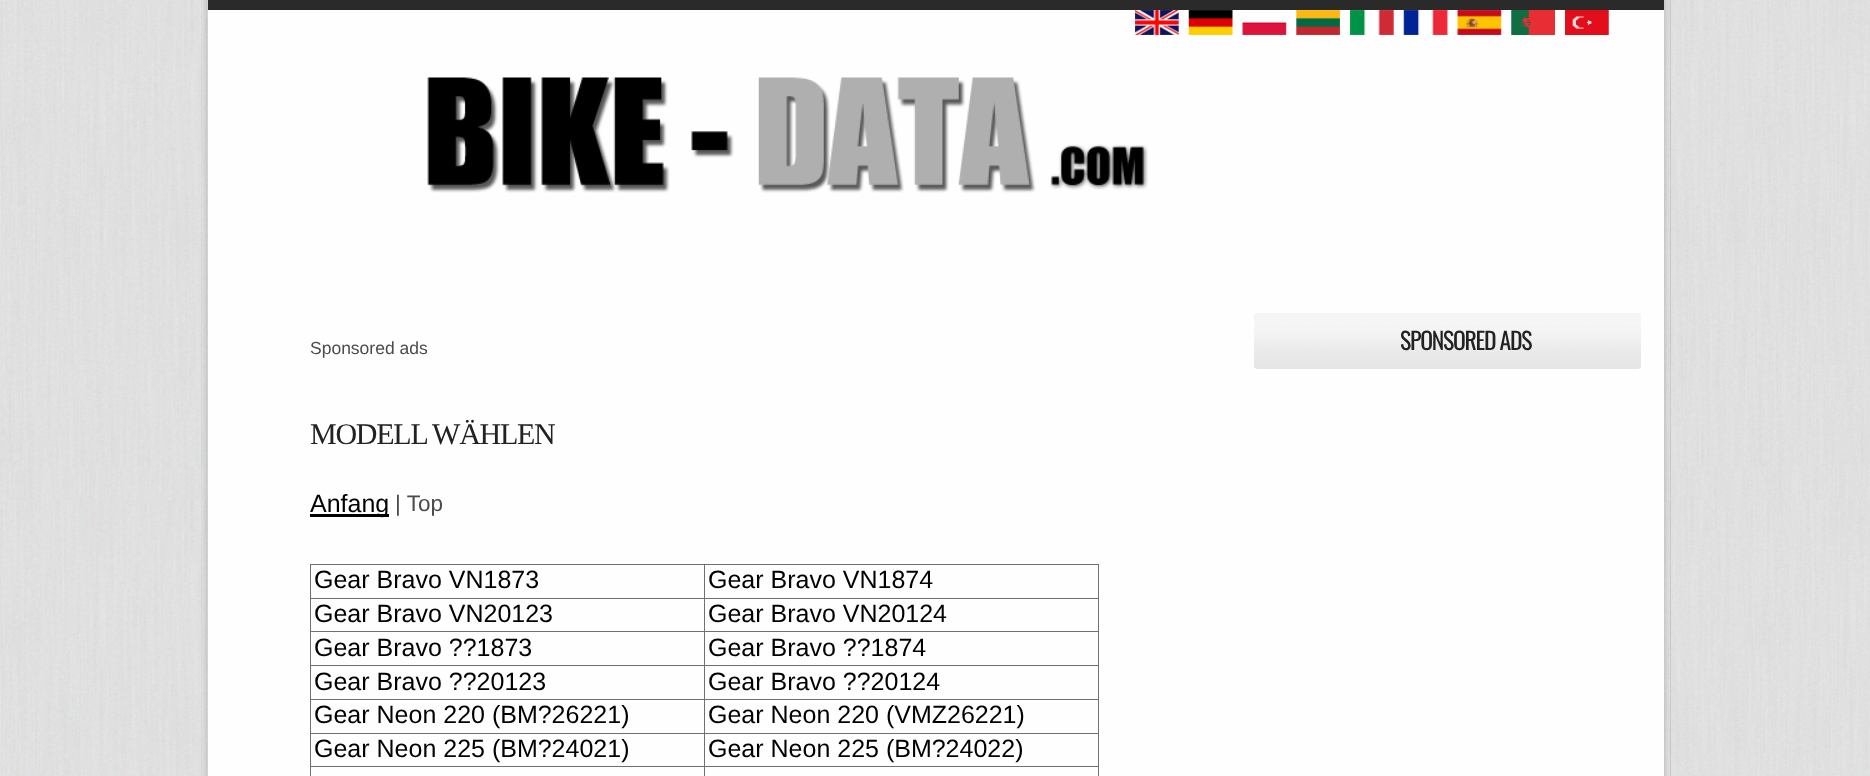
async function draw(canvas) {
  canvas.width = 1870
  canvas.height = 776
  const ctx = canvas.getContext('2d')
  ctx.miterLimit = 4
  ctx.fontKerning = 'normal'
  async function loadImage(src) {
    const img = new Image()
    img.src = src
    await img.decode()
    return img
  }

  ctx.fillStyle = '#fff'
  ctx.fillRect(0, 0, 1870, 776)
  ctx.drawImage(await loadImage('image0.png'), 0, 0, 1870, 776)
  ctx.fillStyle = '#fefefe'
  ctx.fillRect(208, 10, 1456, 766)
  ctx.drawImage(await loadImage('image1.png'), 201, 0, 7, 776)
  ctx.fillStyle = '#2a2a2a'
  ctx.fillRect(208, 0, 1456, 10)
  ctx.drawImage(await loadImage('image2.png'), 1135, 10, 44, 25)
  ctx.drawImage(await loadImage('image3.png'), 1188, 10, 45, 25)
  ctx.drawImage(await loadImage('image4.png'), 1242, 22, 45, 13)
  ctx.drawImage(await loadImage('image5.png'), 1296, 10, 44, 25)
  ctx.drawImage(await loadImage('image6.png'), 1350, 10, 44, 25)
  ctx.drawImage(await loadImage('image7.png'), 1403, 10, 45, 25)
  ctx.drawImage(await loadImage('image8.png'), 1457, 10, 45, 25)
  ctx.drawImage(await loadImage('image9.png'), 1511, 10, 44, 25)
  ctx.drawImage(await loadImage('image10.png'), 1565, 10, 44, 25)
  ctx.drawImage(await loadImage('image11.png'), 427, 77, 721, 116)
  ctx.drawImage(await loadImage('image12.png'), 1664, 0, 7, 776)
  ctx.font = '17.5px Liberation Sans'
  ctx.fillStyle = '#4b4b4b'
  ctx.fillText('Sponsored ads', 310, 354)
  ctx.letterSpacing = '-1.25px'
  ctx.font = '30px Liberation Serif'
  ctx.fillStyle = '#222'
  ctx.fillText('MODELL WÄHLEN', 310, 444)
  ctx.fillStyle = '#000'
  ctx.fillRect(310, 514, 79, 3)
  ctx.letterSpacing = '0px'
  ctx.font = '25px Liberation Sans'
  ctx.fillText('Anfang', 310, 512)
  ctx.font = '22.5px Liberation Sans'
  ctx.fillStyle = '#4b4b4b'
  ctx.fillText('| Top', 395, 511)
  ctx.fillStyle = '#707070'
  ctx.fillRect(704, 564, 395, 1)
  ctx.fillRect(704, 598, 395, 1)
  ctx.fillRect(704, 631, 395, 1)
  ctx.fillRect(704, 665, 395, 1)
  ctx.fillRect(704, 699, 395, 1)
  ctx.fillRect(704, 733, 395, 1)
  ctx.fillRect(704, 766, 395, 1)
  ctx.fillRect(704, 766, 1, 10)
  ctx.fillRect(310, 766, 395, 1)
  ctx.fillRect(704, 733, 1, 35)
  ctx.fillRect(310, 733, 395, 1)
  ctx.fillRect(704, 699, 1, 35)
  ctx.fillRect(310, 699, 395, 1)
  ctx.fillRect(704, 665, 1, 35)
  ctx.fillRect(310, 665, 395, 1)
  ctx.fillRect(704, 631, 1, 35)
  ctx.fillRect(310, 631, 395, 1)
  ctx.fillRect(704, 598, 1, 35)
  ctx.fillRect(310, 598, 395, 1)
  ctx.fillRect(704, 564, 1, 35)
  ctx.fillRect(310, 564, 395, 1)
  ctx.fillRect(310, 766, 1, 10)
  ctx.fillRect(310, 733, 1, 35)
  ctx.fillRect(310, 699, 1, 35)
  ctx.fillRect(310, 665, 1, 35)
  ctx.fillRect(310, 631, 1, 35)
  ctx.fillRect(310, 598, 1, 35)
  ctx.fillRect(310, 564, 1, 35)
  ctx.font = '25px Liberation Sans'
  ctx.fillStyle = '#000'
  ctx.fillText('Gear Bravo VN1873', 314, 588)
  ctx.fillStyle = '#707070'
  ctx.fillRect(1098, 766, 1, 10)
  ctx.fillRect(1098, 733, 1, 35)
  ctx.fillRect(1098, 699, 1, 35)
  ctx.fillRect(1098, 665, 1, 35)
  ctx.fillRect(1098, 631, 1, 35)
  ctx.fillRect(1098, 598, 1, 35)
  ctx.fillRect(1098, 564, 1, 35)
  ctx.fillStyle = '#000'
  ctx.fillText('Gear Bravo VN1874', 708, 588)
  ctx.fillText('Gear Bravo VN20123', 314, 622)
  ctx.fillText('Gear Bravo VN20124', 708, 622)
  ctx.fillText('Gear Bravo ??1873', 314, 656)
  ctx.fillText('Gear Bravo ??1874', 708, 656)
  ctx.fillText('Gear Bravo ??20123', 314, 690)
  ctx.fillText('Gear Bravo ??20124', 708, 690)
  ctx.fillText('Gear Neon 220 (BM?26221)', 314, 723)
  ctx.fillText('Gear Neon 220 (VMZ26221)', 708, 723)
  ctx.fillText('Gear Neon 225 (BM?24021)', 314, 757)
  ctx.fillText('Gear Neon 225 (BM?24022)', 708, 757)
  ctx.fillStyle = '#e6e6e6'
  ctx.beginPath()
  ctx.roundRect(1254, 313, 387, 56, 4)
  ctx.fill()
  ctx.drawImage(await loadImage('image13.png'), 1254, 313, 387, 56)
  ctx.letterSpacing = '-1.25px'
  ctx.font = '23.75px Oswald'
  ctx.fillStyle = '#222'
  ctx.fillText('SPONSORED ADS', 1400, 350)
}

draw(document.querySelector('canvas'))
